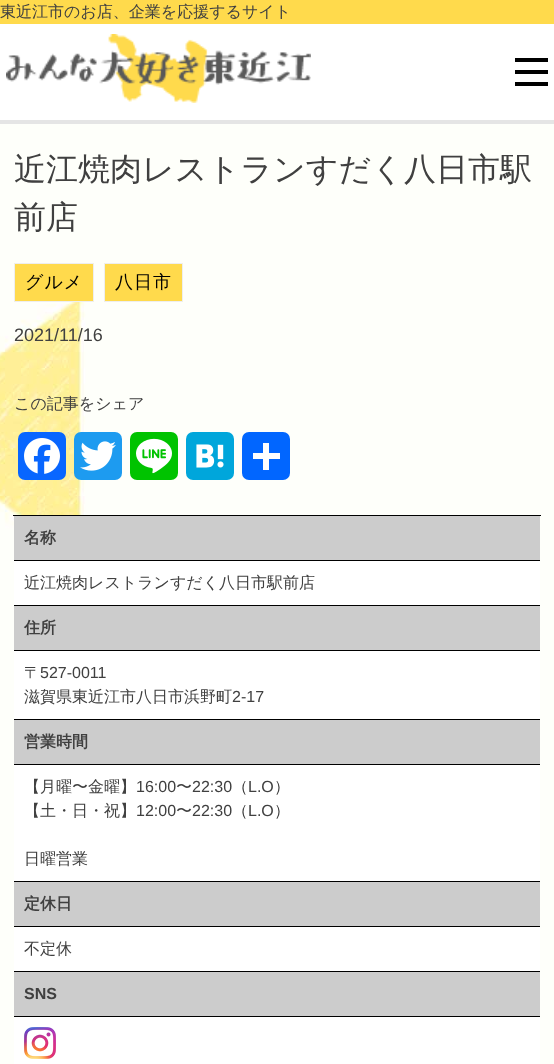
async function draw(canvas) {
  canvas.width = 554
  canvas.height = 1064
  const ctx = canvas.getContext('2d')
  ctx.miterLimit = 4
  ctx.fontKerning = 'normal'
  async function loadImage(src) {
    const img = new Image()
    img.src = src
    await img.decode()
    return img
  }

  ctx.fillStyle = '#fff'
  ctx.fillRect(0, 0, 554, 1064)
  ctx.fillStyle = '#ffda4c'
  ctx.fillRect(0, 0, 554, 24)
  ctx.font = '500 16px WenQuanYi Zen Hei'
  ctx.fillStyle = '#404040'
  ctx.fillText('東近江市のお店、企業を応援するサイト', 0, 17)
  ctx.drawImage(await loadImage('image0.png'), 6, 34, 305, 69)
  ctx.fillStyle = '#000'
  ctx.fillRect(515, 58, 33, 4)
  ctx.fillRect(515, 70, 33, 4)
  ctx.fillRect(515, 82, 33, 4)
  ctx.drawImage(await loadImage('image1.png'), 0, 124, 554, 940)
  ctx.fillStyle = '#e5e5e5'
  ctx.fillRect(0, 120, 554, 4)
  ctx.font = '500 32px WenQuanYi Zen Hei'
  ctx.fillStyle = '#404040'
  ctx.fillText('近江焼肉レストランすだく八日市駅', 14, 180)
  ctx.fillText('前店', 14, 228)
  ctx.fillStyle = '#ffda4c'
  ctx.beginPath()
  ctx.rect(14.5, 263.5, 79, 38)
  ctx.fill()
  ctx.strokeStyle = '#eee'
  ctx.stroke()
  ctx.letterSpacing = '1px'
  ctx.font = '500 18px WenQuanYi Zen Hei'
  ctx.fillStyle = '#000'
  ctx.fillText('グルメ', 25, 288)
  ctx.fillStyle = '#ffda4c'
  ctx.beginPath()
  ctx.rect(104.5, 263.5, 78, 38)
  ctx.fill()
  ctx.stroke()
  ctx.fillStyle = '#000'
  ctx.fillText('八日市', 115, 288)
  ctx.letterSpacing = '0px'
  ctx.font = '18px Liberation Sans'
  ctx.fillStyle = '#404040'
  ctx.fillText('2021/11/16', 14, 341)
  ctx.font = '500 16px WenQuanYi Zen Hei'
  ctx.fillText('この記事をシェア', 14, 409)
  ctx.fillStyle = '#0866ff'
  ctx.beginPath()
  ctx.roundRect(18, 432, 48, 48, 7)
  ctx.fill()
  ctx.drawImage(await loadImage('image2.png'), 24, 438, 36, 36)
  ctx.fillStyle = '#1d9bf0'
  ctx.beginPath()
  ctx.roundRect(74, 432, 48, 48, 7)
  ctx.fill()
  ctx.drawImage(await loadImage('image3.png'), 80, 441, 36, 30)
  ctx.fillStyle = '#00c300'
  ctx.beginPath()
  ctx.roundRect(130, 432, 48, 48, 7)
  ctx.fill()
  ctx.drawImage(await loadImage('image4.png'), 136, 438, 36, 36)
  ctx.fillStyle = '#00a6db'
  ctx.beginPath()
  ctx.roundRect(186, 432, 48, 48, 7)
  ctx.fill()
  ctx.drawImage(await loadImage('image5.png'), 196, 444, 28, 24)
  ctx.fillStyle = '#0166ff'
  ctx.beginPath()
  ctx.roundRect(242, 432, 48, 48, 7)
  ctx.fill()
  ctx.fillStyle = '#fff'
  ctx.fillRect(263, 443, 6, 27)
  ctx.fillRect(253, 453, 27, 6)
  ctx.fillRect(14, 561, 526, 503)
  ctx.fillStyle = '#000'
  ctx.fillRect(13, 515, 528, 1)
  ctx.fillStyle = '#ccc'
  ctx.fillRect(14, 516, 526, 44)
  ctx.fillStyle = '#000'
  ctx.fillRect(14, 560, 526, 1)
  ctx.font = 'bold 16px WenQuanYi Zen Hei'
  ctx.fillStyle = '#404040'
  ctx.fillText('名称', 24, 543)
  ctx.fillStyle = '#000'
  ctx.fillRect(14, 605, 526, 1)
  ctx.font = '500 16px WenQuanYi Zen Hei'
  ctx.fillStyle = '#404040'
  ctx.fillText('近江焼肉レストランすだく八日市駅前店', 24, 588)
  ctx.fillStyle = '#ccc'
  ctx.fillRect(14, 606, 526, 44)
  ctx.fillStyle = '#000'
  ctx.fillRect(14, 650, 526, 1)
  ctx.font = 'bold 16px WenQuanYi Zen Hei'
  ctx.fillStyle = '#404040'
  ctx.fillText('住所', 24, 633)
  ctx.fillStyle = '#000'
  ctx.fillRect(14, 719, 526, 1)
  ctx.font = '500 16px WenQuanYi Zen Hei'
  ctx.fillStyle = '#404040'
  ctx.fillText('〒', 24, 678)
  ctx.font = '16px Liberation Sans'
  ctx.fillText('527-0011', 40, 678)
  ctx.font = '500 16px WenQuanYi Zen Hei'
  ctx.fillText('滋賀県東近江市八日市浜野町', 24, 702)
  ctx.font = '16px Liberation Sans'
  ctx.fillText('2-17', 232, 702)
  ctx.fillStyle = '#ccc'
  ctx.fillRect(14, 720, 526, 44)
  ctx.fillStyle = '#000'
  ctx.fillRect(14, 764, 526, 1)
  ctx.font = 'bold 16px WenQuanYi Zen Hei'
  ctx.fillStyle = '#404040'
  ctx.fillText('営業時間', 24, 747)
  ctx.fillStyle = '#000'
  ctx.fillRect(14, 881, 526, 1)
  ctx.font = '500 16px WenQuanYi Zen Hei'
  ctx.fillStyle = '#404040'
  ctx.fillText('【月曜〜金曜】', 24, 792)
  ctx.font = '16px Liberation Sans'
  ctx.fillText('16:00', 136, 792)
  ctx.font = '500 16px WenQuanYi Zen Hei'
  ctx.fillText('〜', 176, 792)
  ctx.font = '16px Liberation Sans'
  ctx.fillText('22:30', 192, 792)
  ctx.font = '500 16px WenQuanYi Zen Hei'
  ctx.fillText('（', 232, 792)
  ctx.font = '16px Liberation Sans'
  ctx.fillText('L.O', 248, 792)
  ctx.font = '500 16px WenQuanYi Zen Hei'
  ctx.fillText('）', 274, 792)
  ctx.fillText('【土・日・祝】', 24, 816)
  ctx.font = '16px Liberation Sans'
  ctx.fillText('12:00', 136, 816)
  ctx.font = '500 16px WenQuanYi Zen Hei'
  ctx.fillText('〜', 176, 816)
  ctx.font = '16px Liberation Sans'
  ctx.fillText('22:30', 192, 816)
  ctx.font = '500 16px WenQuanYi Zen Hei'
  ctx.fillText('（', 232, 816)
  ctx.font = '16px Liberation Sans'
  ctx.fillText('L.O', 248, 816)
  ctx.font = '500 16px WenQuanYi Zen Hei'
  ctx.fillText('）', 274, 816)
  ctx.fillText('日曜営業', 24, 864)
  ctx.fillStyle = '#ccc'
  ctx.fillRect(14, 882, 526, 44)
  ctx.fillStyle = '#000'
  ctx.fillRect(14, 926, 526, 1)
  ctx.font = 'bold 16px WenQuanYi Zen Hei'
  ctx.fillStyle = '#404040'
  ctx.fillText('定休日', 24, 909)
  ctx.fillStyle = '#000'
  ctx.fillRect(14, 971, 526, 1)
  ctx.font = '500 16px WenQuanYi Zen Hei'
  ctx.fillStyle = '#404040'
  ctx.fillText('不定休', 24, 954)
  ctx.fillStyle = '#ccc'
  ctx.fillRect(14, 972, 526, 44)
  ctx.fillStyle = '#000'
  ctx.fillRect(14, 1016, 526, 1)
  ctx.font = 'bold 16px Liberation Sans'
  ctx.fillStyle = '#404040'
  ctx.fillText('SNS', 24, 999)
  ctx.drawImage(await loadImage('image6.png'), 24, 1027, 32, 32)
}

draw(document.querySelector('canvas'))
